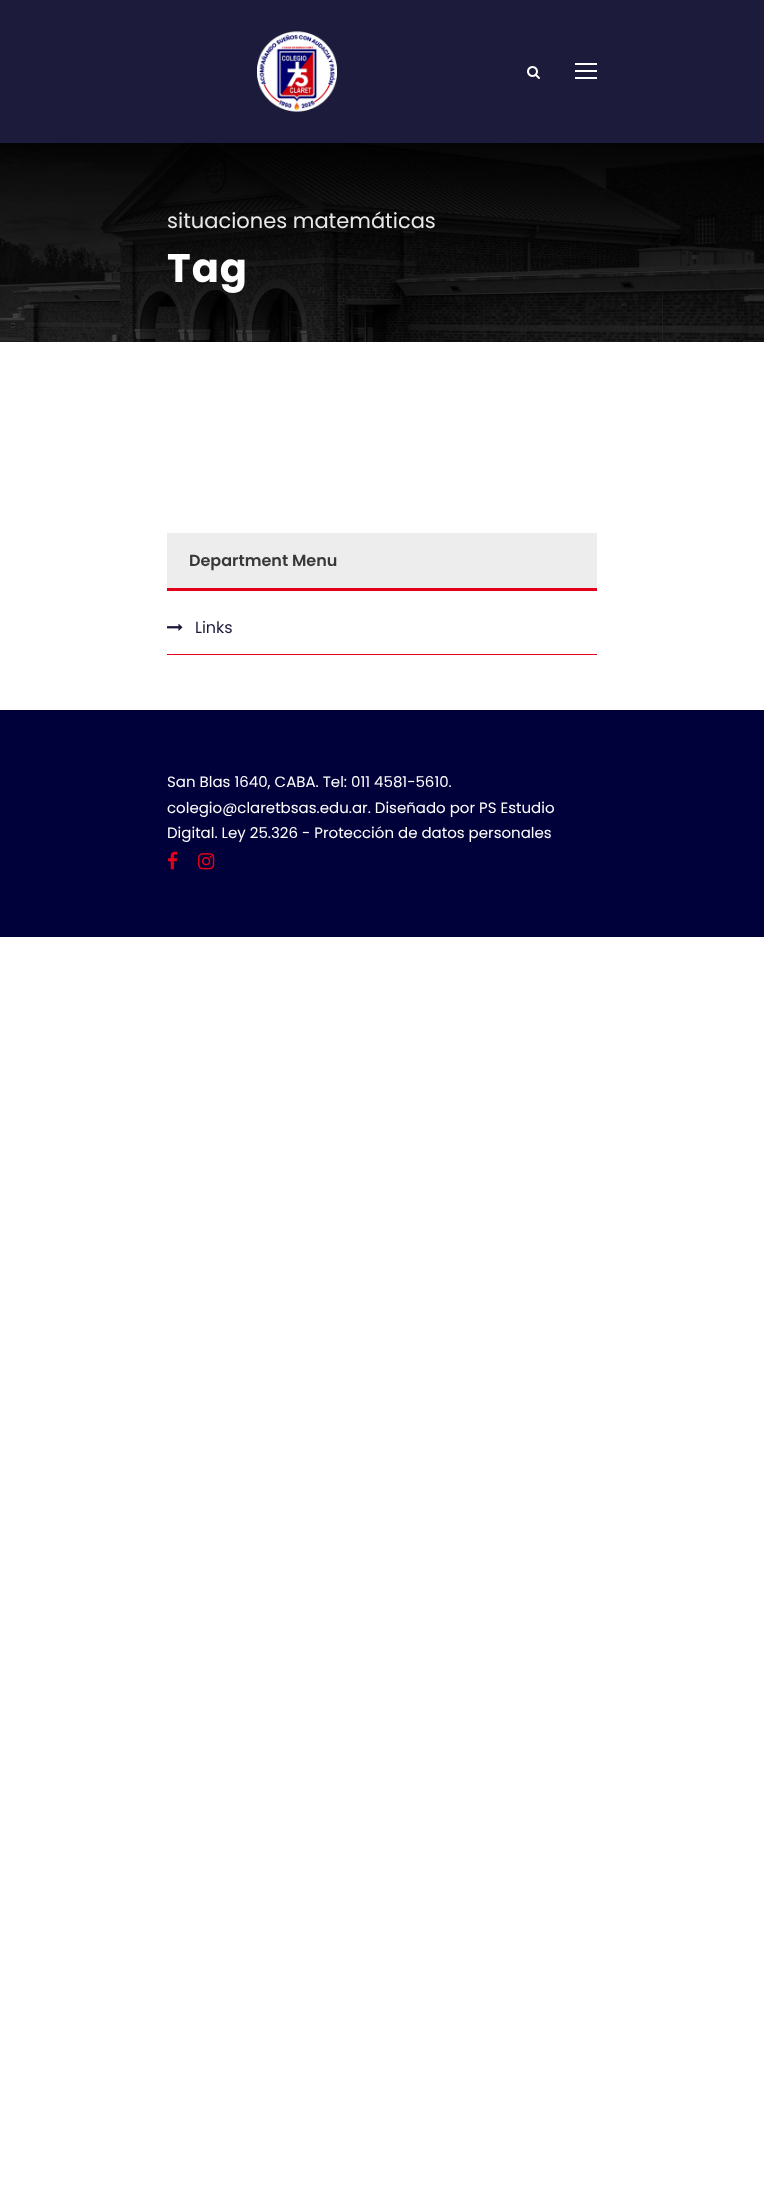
async function draw(canvas) {
  canvas.width = 764
  canvas.height = 2185
  const ctx = canvas.getContext('2d')
  ctx.miterLimit = 4
  ctx.fontKerning = 'normal'
  async function loadImage(src) {
    const img = new Image()
    img.src = src
    await img.decode()
    return img
  }

  ctx.fillStyle = '#fff'
  ctx.fillRect(0, 0, 764, 2185)
  ctx.fillStyle = '#1c1b3b'
  ctx.fillRect(0, 0, 764, 143)
  ctx.drawImage(await loadImage('image0.png'), 257, 31, 80, 81)
  ctx.drawImage(await loadImage('image1.png'), 527, 66, 13, 13)
  ctx.fillStyle = '#fff'
  ctx.fillRect(575, 63, 22, 2)
  ctx.fillRect(575, 70, 22, 2)
  ctx.fillRect(575, 77, 22, 2)
  ctx.drawImage(await loadImage('image2.png'), 0, 143, 764, 199)
  ctx.font = '21px Poppins'
  ctx.fillStyle = '#e8e8e8'
  ctx.fillText('situaciones matemáticas', 167, 228)
  ctx.letterSpacing = '1px'
  ctx.font = 'bold 40px Poppins'
  ctx.fillStyle = '#fff'
  ctx.fillText('Tag', 167, 282)
  ctx.fillStyle = '#ededed'
  ctx.fillRect(167, 533, 430, 55)
  ctx.fillStyle = '#e2001a'
  ctx.fillRect(167, 588, 430, 3)
  ctx.letterSpacing = '0px'
  ctx.font = '600 16px Poppins'
  ctx.fillStyle = '#383838'
  ctx.fillText('Department Menu', 189, 566)
  ctx.fillStyle = '#e2001a'
  ctx.fillRect(167, 654, 430, 1)
  ctx.drawImage(await loadImage('image3.png'), 167, 623, 16, 8)
  ctx.font = '16px Poppins'
  ctx.fillStyle = '#1c1b3b'
  ctx.fillText('Links', 195, 633)
  ctx.fillStyle = '#00003a'
  ctx.fillRect(0, 710, 764, 227)
  ctx.font = '15px Poppins'
  ctx.fillStyle = '#fff'
  ctx.fillText('San Blas 1640, CABA. Tel: 011 4581-5610.', 167, 787)
  ctx.fillText('colegio@claretbsas.edu.ar. Diseñado por PS Estudio', 167, 813)
  ctx.fillText('Digital. Ley 25.326 - Protección de datos personales', 167, 838)
  ctx.drawImage(await loadImage('image4.png'), 168, 851, 10, 19)
  ctx.drawImage(await loadImage('image5.png'), 198, 853, 17, 17)
}

draw(document.querySelector('canvas'))
